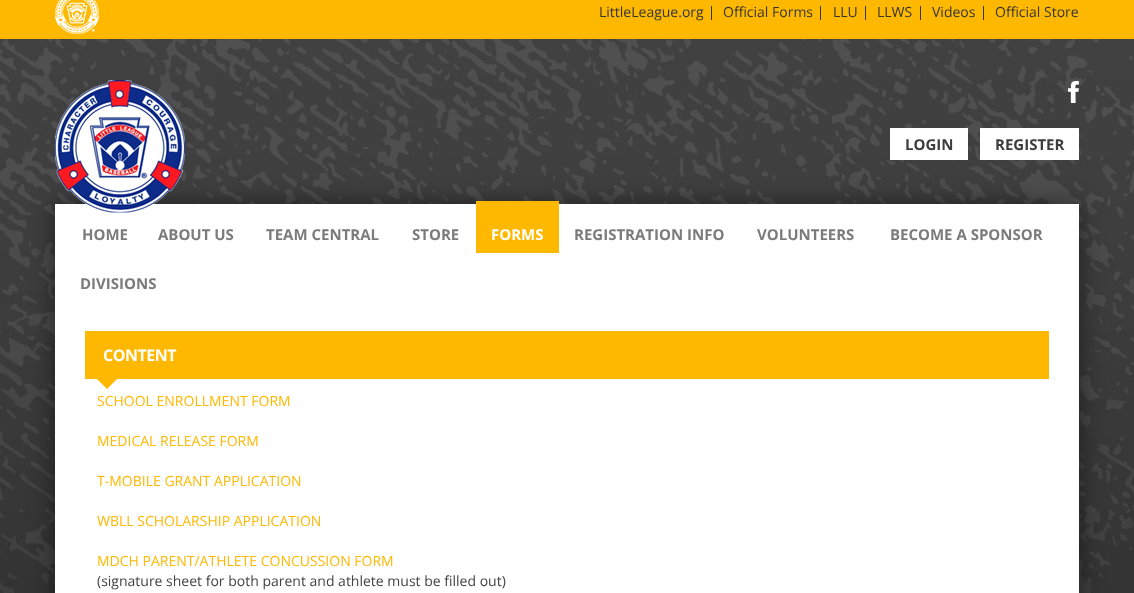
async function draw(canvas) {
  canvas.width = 1134
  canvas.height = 593
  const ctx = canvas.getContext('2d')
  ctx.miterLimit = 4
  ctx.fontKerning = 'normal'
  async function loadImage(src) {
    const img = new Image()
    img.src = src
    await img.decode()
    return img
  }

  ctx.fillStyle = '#fff'
  ctx.fillRect(0, 0, 1134, 593)
  ctx.drawImage(await loadImage('image0.png'), 0, 39, 1134, 554)
  ctx.fillStyle = '#feb800'
  ctx.fillRect(0, 0, 1134, 39)
  ctx.drawImage(await loadImage('image1.png'), 55, 0, 44, 34)
  ctx.font = '14px Open Sans'
  ctx.fillStyle = '#363636'
  ctx.fillText('LittleLeague.org', 599, 17)
  ctx.fillRect(711, 6, 1, 14)
  ctx.fillText('Official Forms', 723, 17)
  ctx.fillRect(820, 6, 1, 14)
  ctx.fillText('LLU', 833, 17)
  ctx.fillRect(865, 6, 1, 14)
  ctx.fillText('LLWS', 877, 17)
  ctx.fillRect(920, 6, 1, 14)
  ctx.fillText('Videos', 932, 17)
  ctx.fillRect(983, 6, 1, 14)
  ctx.fillText('Official Store', 995, 17)
  ctx.fillStyle = '#fff'
  ctx.fillRect(55, 204, 1024, 389)
  ctx.save()
  ctx.beginPath()
  ctx.moveTo(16, 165)
  ctx.lineTo(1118, 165)
  ctx.lineTo(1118, 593)
  ctx.lineTo(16, 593)
  ctx.closePath()
  ctx.moveTo(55, 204)
  ctx.lineTo(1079, 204)
  ctx.lineTo(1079, 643)
  ctx.lineTo(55, 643)
  ctx.closePath()
  ctx.clip('evenodd')
  ctx.fillStyle = '#00000080'
  ctx.filter = 'blur(12.5px)'
  ctx.beginPath()
  ctx.rect(55, 204, 1024, 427)
  ctx.fill()
  ctx.filter = 'none'
  ctx.restore()
  ctx.drawImage(await loadImage('image2.png'), 55, 80, 130, 133)
  ctx.drawImage(await loadImage('image3.png'), 1068, 81, 11, 22)
  ctx.fillRect(890, 128, 78, 32)
  ctx.font = 'bold 15px Open Sans'
  ctx.fillStyle = '#3d3d3d'
  ctx.fillText('LOGIN', 905, 150)
  ctx.fillStyle = '#fff'
  ctx.fillRect(980, 128, 99, 32)
  ctx.fillStyle = '#3d3d3d'
  ctx.fillText('REGISTER', 995, 150)
  ctx.fillStyle = '#7b7b7b'
  ctx.fillText('HOME', 82, 240)
  ctx.fillText('ABOUT US', 158, 240)
  ctx.fillText('TEAM CENTRAL', 266, 240)
  ctx.fillText('STORE', 412, 240)
  ctx.fillStyle = '#feb800'
  ctx.fillRect(476, 201, 83, 52)
  ctx.fillStyle = '#fff'
  ctx.fillText('FORMS', 491, 240)
  ctx.fillStyle = '#7b7b7b'
  ctx.fillText('REGISTRATION INFO', 574, 240)
  ctx.fillText('VOLUNTEERS', 757, 240)
  ctx.fillText('BECOME A SPONSOR', 890, 240)
  ctx.fillText('DIVISIONS', 80, 289)
  ctx.fillStyle = '#feb800'
  ctx.fillRect(85, 331, 964, 48)
  ctx.letterSpacing = '-0.5px'
  ctx.font = 'bold 16px Open Sans'
  ctx.fillStyle = '#fff'
  ctx.fillText('CONTENT', 103, 361)
  ctx.fillStyle = '#feb800'
  ctx.beginPath()
  ctx.moveTo(97, 379)
  ctx.lineTo(117, 379)
  ctx.lineTo(107, 389)
  ctx.closePath()
  ctx.fill()
  ctx.letterSpacing = '0px'
  ctx.font = '14px Open Sans'
  ctx.fillText('SCHOOL ENROLLMENT FORM', 97, 406)
  ctx.fillText('MEDICAL RELEASE FORM', 97, 446)
  ctx.fillText('T-MOBILE GRANT APPLICATION', 97, 486)
  ctx.fillText('WBLL SCHOLARSHIP APPLICATION', 97, 526)
  ctx.fillText('MDCH PARENT/ATHLETE CONCUSSION FORM', 97, 566)
  ctx.fillStyle = '#444'
  ctx.fillText('(signature sheet for both parent and athlete must be filled out)', 97, 586)
}

draw(document.querySelector('canvas'))
